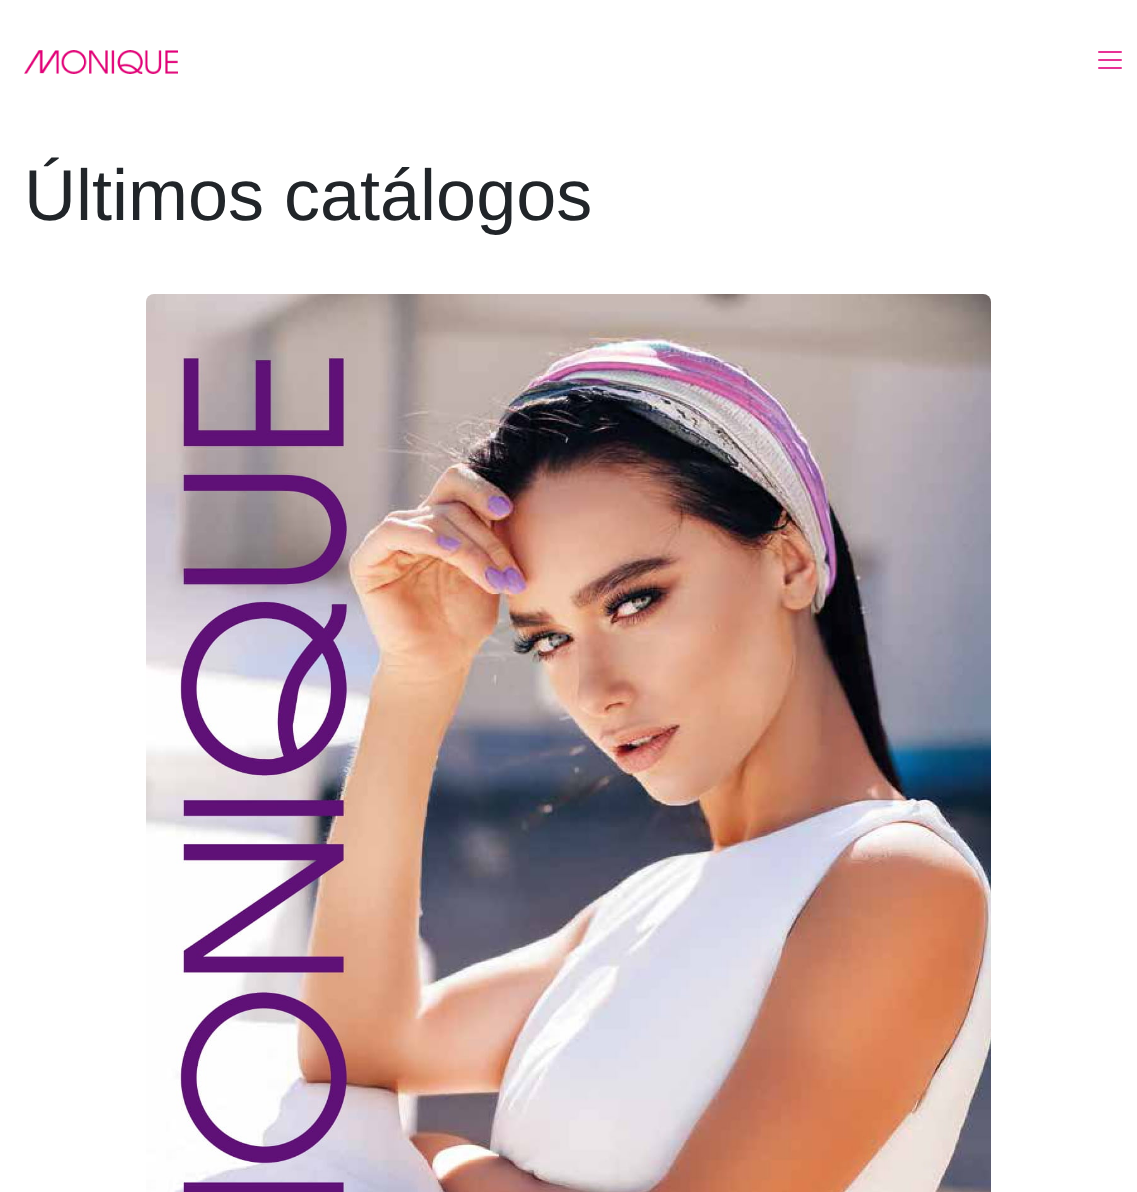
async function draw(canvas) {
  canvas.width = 1137
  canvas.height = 1192
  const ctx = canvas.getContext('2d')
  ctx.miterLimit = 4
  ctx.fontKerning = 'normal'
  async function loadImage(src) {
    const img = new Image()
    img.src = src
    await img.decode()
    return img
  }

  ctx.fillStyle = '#fff'
  ctx.fillRect(0, 0, 1137, 1192)
  ctx.drawImage(await loadImage('image0.png'), 24, 50, 154, 24)
  ctx.drawImage(await loadImage('image1.png'), 1098, 51, 24, 18)
  ctx.font = '72px Liberation Sans'
  ctx.fillStyle = '#212529'
  ctx.fillText('Últimos catálogos', 24, 220)
  ctx.drawImage(await loadImage('image2.png'), 146, 294, 845, 898)
}

draw(document.querySelector('canvas'))
